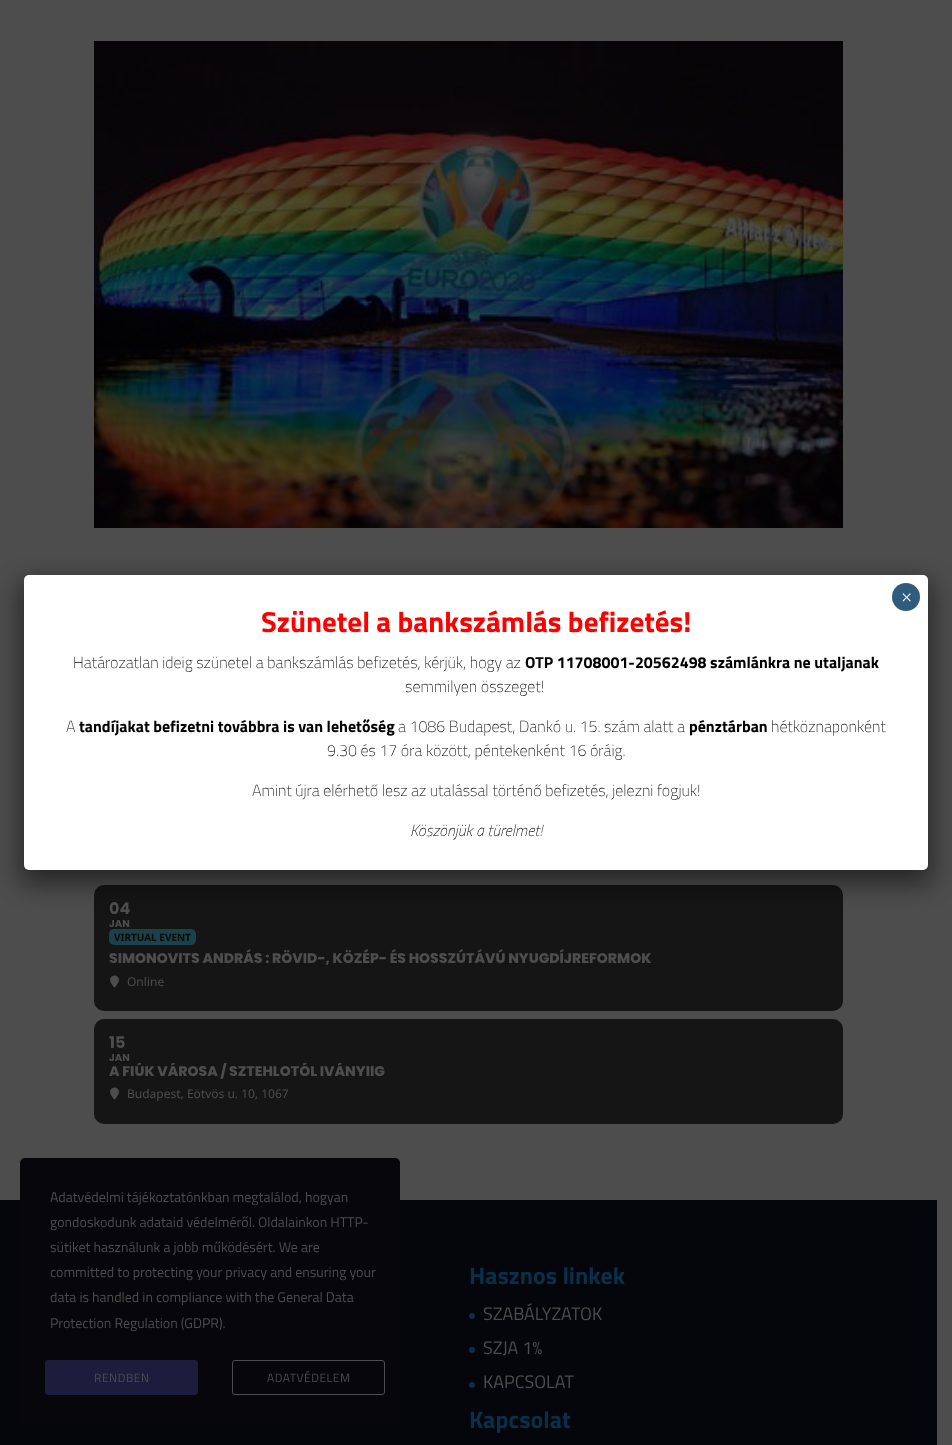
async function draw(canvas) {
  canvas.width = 952
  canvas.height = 1445
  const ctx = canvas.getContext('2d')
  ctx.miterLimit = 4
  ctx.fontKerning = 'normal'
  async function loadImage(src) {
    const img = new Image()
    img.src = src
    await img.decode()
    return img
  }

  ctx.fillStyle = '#4d4d4d'
  ctx.fillRect(0, 0, 952, 1445)
  ctx.fillStyle = '#151515'
  ctx.beginPath()
  ctx.roundRect(94, 885, 749, 126, 10)
  ctx.fill()
  ctx.fillStyle = '#02020280'
  ctx.filter = 'blur(12.5px)'
  ctx.beginPath()
  ctx.roundRect(20, 581, 912, 303, 9)
  ctx.fill()
  ctx.filter = 'none'
  ctx.fillStyle = '#fff'
  ctx.beginPath()
  ctx.roundRect(24, 575, 904, 295, 5)
  ctx.fill()
  ctx.fillStyle = '#315b7c'
  ctx.beginPath()
  ctx.arc(906, 597, 14, 0, 2 * Math.PI)
  ctx.fill()
  ctx.font = '20px Liberation Serif'
  ctx.fillStyle = '#fff'
  ctx.fillText('×', 901, 604)
  ctx.font = 'bold 29px Titillium Web'
  ctx.fillStyle = '#f00'
  ctx.fillText('Szünetel a bankszámlás befizetés!', 261, 632)
  ctx.font = '200 16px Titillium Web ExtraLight'
  ctx.fillStyle = '#000'
  ctx.fillText('Határozatlan ideig szünetel a bankszámlás befizetés, kérjük, hogy az', 73, 668)
  ctx.font = 'bold 16px Titillium Web'
  ctx.fillText('OTP 11708001-20562498 számlánkra ne utaljanak', 525, 668)
  ctx.font = '200 16px Titillium Web ExtraLight'
  ctx.fillText('semmilyen összeget!', 405, 692)
  ctx.fillText('A', 66, 732)
  ctx.font = 'bold 16px Titillium Web'
  ctx.fillText('tandíjakat befizetni továbbra is van lehetőség', 79, 732)
  ctx.font = '200 16px Titillium Web ExtraLight'
  ctx.fillText('a 1086 Budapest, Dankó u. 15. szám alatt a', 398, 732)
  ctx.font = 'bold 16px Titillium Web'
  ctx.fillText('pénztárban', 689, 732)
  ctx.font = '200 16px Titillium Web ExtraLight'
  ctx.fillText('hétköznaponként', 771, 732)
  ctx.fillText('9.30 és 17 óra között, péntekenként 16 óráig.', 327, 756)
  ctx.fillText('Amint újra elérhető lesz az utalással történő befizetés, jelezni fogjuk!', 252, 796)
  ctx.font = 'italic 200 16px Titillium Web ExtraLight'
  ctx.fillText('Köszönjük a türelmet!', 410, 836)
  ctx.drawImage(await loadImage('image0.png'), 94, 41, 749, 487)
  ctx.font = 'bold 16px Poppins'
  ctx.fillStyle = '#4d4d4d'
  ctx.fillText('04', 109, 914)
  ctx.font = 'bold 10px Poppins'
  ctx.fillText('JAN', 109, 927)
  ctx.fillStyle = '#1b414a'
  ctx.beginPath()
  ctx.roundRect(109, 929, 87, 16, 5)
  ctx.fill()
  ctx.font = 'bold 10px Noto Sans'
  ctx.fillStyle = '#0a0a0b'
  ctx.fillText('VIRTUAL EVENT', 114, 941)
  ctx.font = '800 14px Poppins'
  ctx.fillStyle = '#4d4d4d'
  ctx.fillText('SIMONOVITS ANDRÁS : RÖVID-, KÖZÉP- ÉS HOSSZÚTÁVÚ NYUGDÍJREFORMOK', 109, 963)
  ctx.drawImage(await loadImage('image1.png'), 110, 975, 9, 13)
  ctx.font = '12px Noto Sans'
  ctx.fillText('Online', 127, 986)
  ctx.fillStyle = '#151515'
  ctx.beginPath()
  ctx.roundRect(94, 1019, 749, 105, 10)
  ctx.fill()
  ctx.font = 'bold 16px Poppins'
  ctx.fillStyle = '#4d4d4d'
  ctx.fillText('15', 109, 1048)
  ctx.font = 'bold 10px Poppins'
  ctx.fillText('JAN', 109, 1061)
  ctx.save()
  ctx.beginPath()
  ctx.rect(109, 1063, 709, 46)
  ctx.clip()
  ctx.font = '800 14px Poppins'
  ctx.fillText('A FIÚK VÁROSA / SZTEHLOTÓL IVÁNYIIG', 109, 1076)
  ctx.restore()
  ctx.drawImage(await loadImage('image1.png'), 110, 1087, 9, 13)
  ctx.font = '12px Noto Sans'
  ctx.fillText('Budapest, Eötvös u. 10, 1067', 127, 1098)
  ctx.fillStyle = '#04060b'
  ctx.fillRect(0, 1200, 937, 245)
  ctx.font = 'bold 24px Titillium Web'
  ctx.fillStyle = '#092f49'
  ctx.fillText('Hasznos linkek', 469, 1284)
  ctx.beginPath()
  ctx.arc(472, 1316, 3, 0, 2 * Math.PI)
  ctx.fill()
  ctx.font = '18px Titillium Web'
  ctx.fillStyle = '#4d4d4d'
  ctx.fillText('SZABÁLYZATOK', 483, 1320)
  ctx.fillStyle = '#092f49'
  ctx.beginPath()
  ctx.arc(472, 1350, 3, 0, 2 * Math.PI)
  ctx.fill()
  ctx.fillStyle = '#4d4d4d'
  ctx.fillText('SZJA 1%', 483, 1354)
  ctx.fillStyle = '#092f49'
  ctx.beginPath()
  ctx.arc(472, 1385, 3, 0, 2 * Math.PI)
  ctx.fill()
  ctx.fillStyle = '#4d4d4d'
  ctx.fillText('KAPCSOLAT', 483, 1388)
  ctx.font = 'bold 24px Titillium Web'
  ctx.fillStyle = '#092f49'
  ctx.fillText('Kapcsolat', 469, 1428)
  ctx.fillStyle = '#06060b'
  ctx.beginPath()
  ctx.roundRect(20, 1158, 380, 267, 5)
  ctx.fill()
  ctx.font = '14px Titillium Web'
  ctx.fillStyle = '#4d4d4d'
  ctx.fillText('Adatvédelmi tájékoztatónkban megtalálod, hogyan', 50, 1202)
  ctx.fillText('gondoskodunk adataid védelméről. Oldalainkon HTTP-', 50, 1227)
  ctx.fillText('sütiket használunk a jobb működésért. We are', 50, 1252)
  ctx.fillText('committed to protecting your privacy and ensuring your', 50, 1277)
  ctx.fillText('data is handled in compliance with the General Data', 50, 1302)
  ctx.fillText('Protection Regulation (GDPR).', 50, 1328)
  ctx.fillStyle = '#1c1c3c'
  ctx.beginPath()
  ctx.roundRect(45.5, 1360.5, 152, 34, 2.5)
  ctx.fill()
  ctx.strokeStyle = '#1c1c3c'
  ctx.stroke()
  ctx.letterSpacing = '0.5px'
  ctx.font = '12px Titillium Web'
  ctx.fillStyle = '#4d4d4d'
  ctx.fillText('RENDBEN', 94, 1382)
  ctx.beginPath()
  ctx.roundRect(232.5, 1360.5, 152, 34, 2.5)
  ctx.strokeStyle = '#4d4d4d'
  ctx.stroke()
  ctx.fillText('ADATVÉDELEM', 267, 1382)
}

draw(document.querySelector('canvas'))
